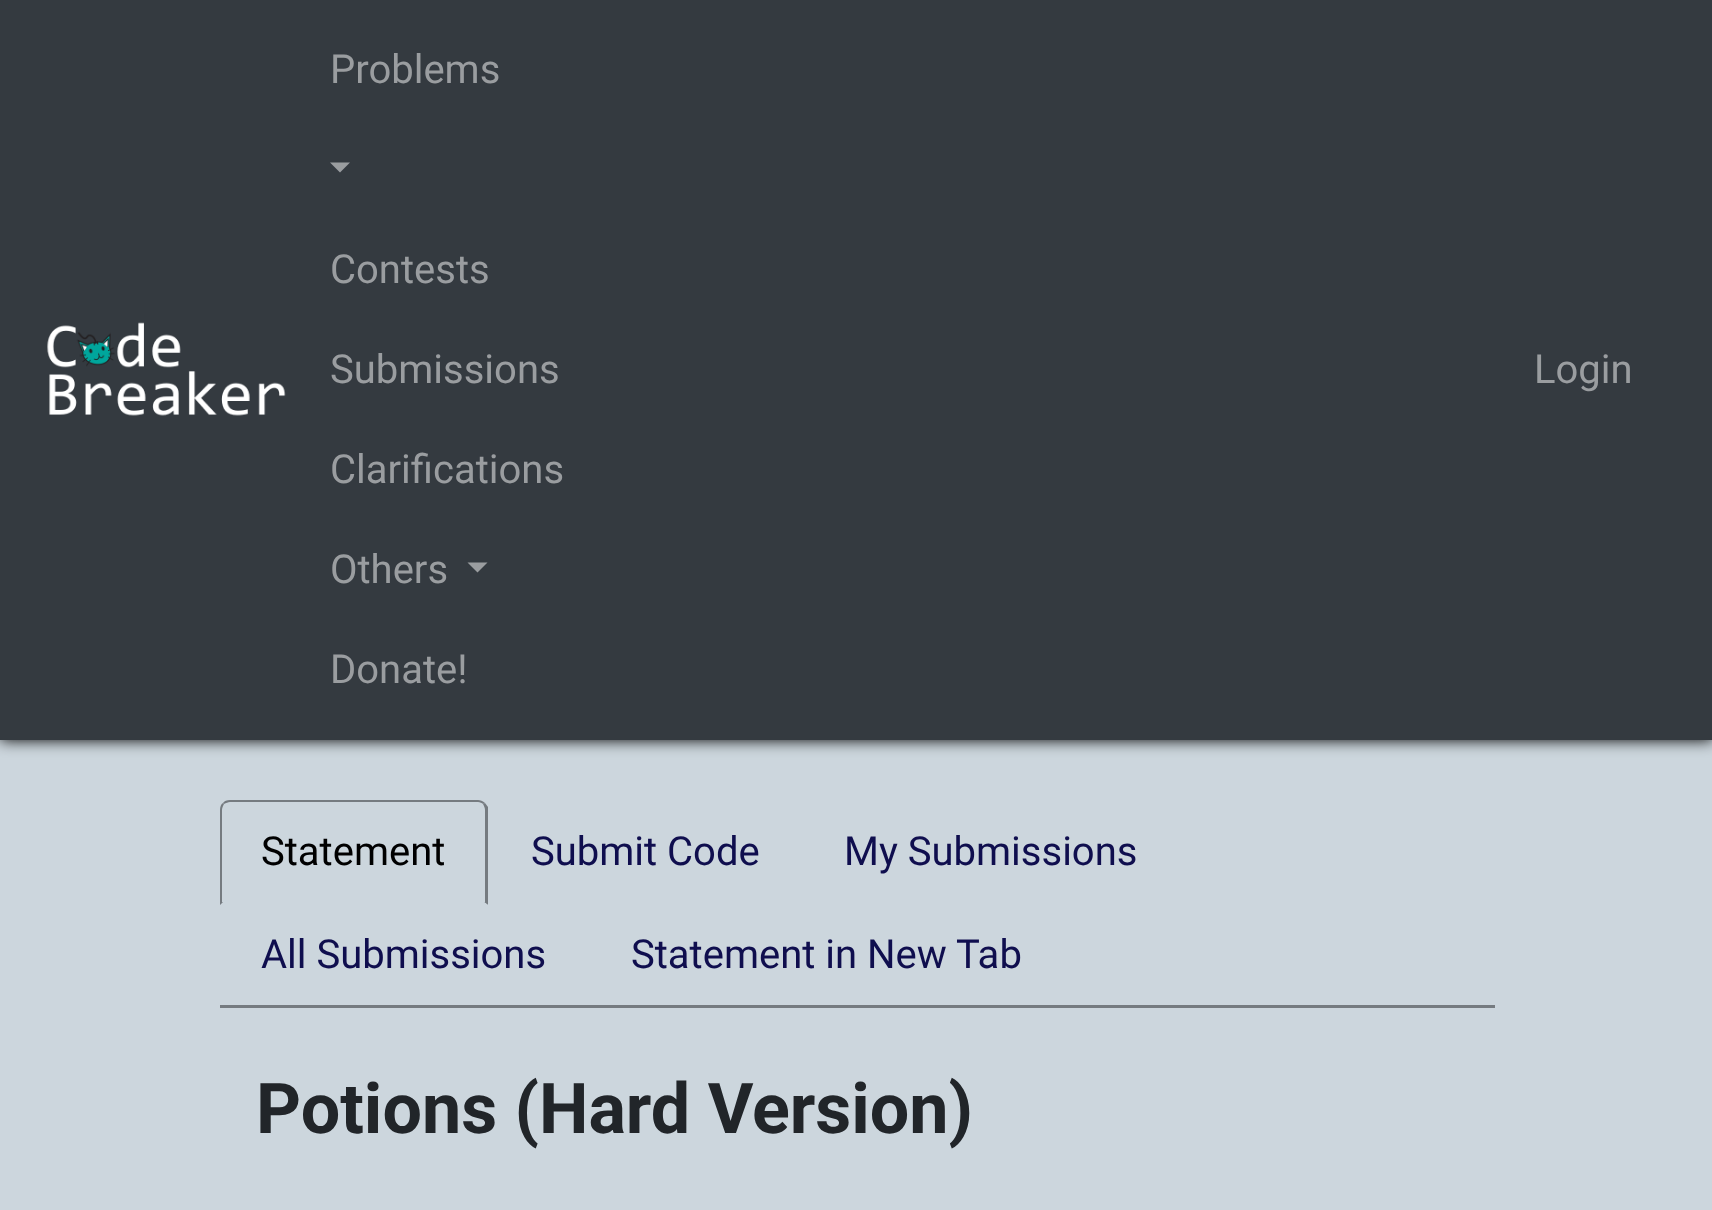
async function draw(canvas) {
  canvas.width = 1712
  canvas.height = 1210
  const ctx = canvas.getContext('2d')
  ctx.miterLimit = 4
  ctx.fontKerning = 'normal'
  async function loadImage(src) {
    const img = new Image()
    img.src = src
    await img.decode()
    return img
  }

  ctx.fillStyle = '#ccd6dd'
  ctx.fillRect(0, 0, 1712, 1210)
  ctx.fillStyle = '#000'
  ctx.filter = 'blur(7.5px)'
  ctx.beginPath()
  ctx.rect(0, 0, 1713, 740)
  ctx.fill()
  ctx.filter = 'none'
  ctx.fillStyle = '#343a40'
  ctx.fillRect(0, 0, 1712, 740)
  ctx.drawImage(await loadImage('image0.png'), 47, 322, 239, 94)
  ctx.font = '40px Roboto'
  ctx.fillStyle = '#9a9da0'
  ctx.fillText('Problems', 330, 83)
  ctx.beginPath()
  ctx.moveTo(330, 162.5)
  ctx.lineTo(350, 162.5)
  ctx.lineTo(340, 172.5)
  ctx.closePath()
  ctx.fill()
  ctx.fillText('Contests', 330, 283)
  ctx.fillText('Submissions', 330, 383)
  ctx.fillText('Clarifications', 330, 483)
  ctx.fillText('Others', 330, 583)
  ctx.beginPath()
  ctx.moveTo(467.5, 562.5)
  ctx.lineTo(487.5, 562.5)
  ctx.lineTo(477.5, 572.5)
  ctx.closePath()
  ctx.fill()
  ctx.fillText('Donate!', 330, 683)
  ctx.fillText('Login', 1534, 383)
  ctx.fillStyle = '#757b80'
  ctx.fillRect(220, 1005, 1275, 3)
  ctx.beginPath()
  ctx.moveTo(230, 800)
  ctx.bezierCurveTo(227, 800, 224, 801, 223, 803)
  ctx.lineTo(224, 804)
  ctx.bezierCurveTo(226, 803, 228, 802, 230, 802)
  ctx.lineTo(478, 802)
  ctx.bezierCurveTo(480, 802, 482, 803, 483, 804)
  ctx.lineTo(485, 803)
  ctx.bezierCurveTo(483, 801, 480, 800, 478, 800)
  ctx.closePath()
  ctx.fill()
  ctx.beginPath()
  ctx.moveTo(488, 807)
  ctx.lineTo(488, 905)
  ctx.lineTo(484, 902)
  ctx.lineTo(485, 902)
  ctx.lineTo(485, 810)
  ctx.bezierCurveTo(485, 808, 484, 806, 483, 804)
  ctx.lineTo(485, 803)
  ctx.closePath()
  ctx.fill()
  ctx.fillStyle = '#ccd6dd'
  ctx.beginPath()
  ctx.moveTo(488, 905)
  ctx.lineTo(484, 902)
  ctx.lineTo(223, 902)
  ctx.lineTo(220, 905)
  ctx.closePath()
  ctx.fill()
  ctx.fillStyle = '#757b80'
  ctx.beginPath()
  ctx.moveTo(220, 905)
  ctx.lineTo(223, 902)
  ctx.lineTo(222, 902)
  ctx.lineTo(222, 810)
  ctx.bezierCurveTo(222, 808, 223, 806, 224, 804)
  ctx.lineTo(223, 803)
  ctx.bezierCurveTo(221, 804, 220, 807, 220, 810)
  ctx.closePath()
  ctx.fill()
  ctx.fillStyle = '#000'
  ctx.fillText('Statement', 261, 865)
  ctx.fillStyle = '#0f0e4e'
  ctx.fillText('Submit Code', 531, 865)
  ctx.fillText('My Submissions', 844, 865)
  ctx.fillText('All Submissions', 261, 968)
  ctx.fillText('Statement in New Tab', 631, 968)
  ctx.font = 'bold 70px Roboto'
  ctx.fillStyle = '#212529'
  ctx.fillText('Potions (Hard Version)', 256, 1133)
}

draw(document.querySelector('canvas'))
